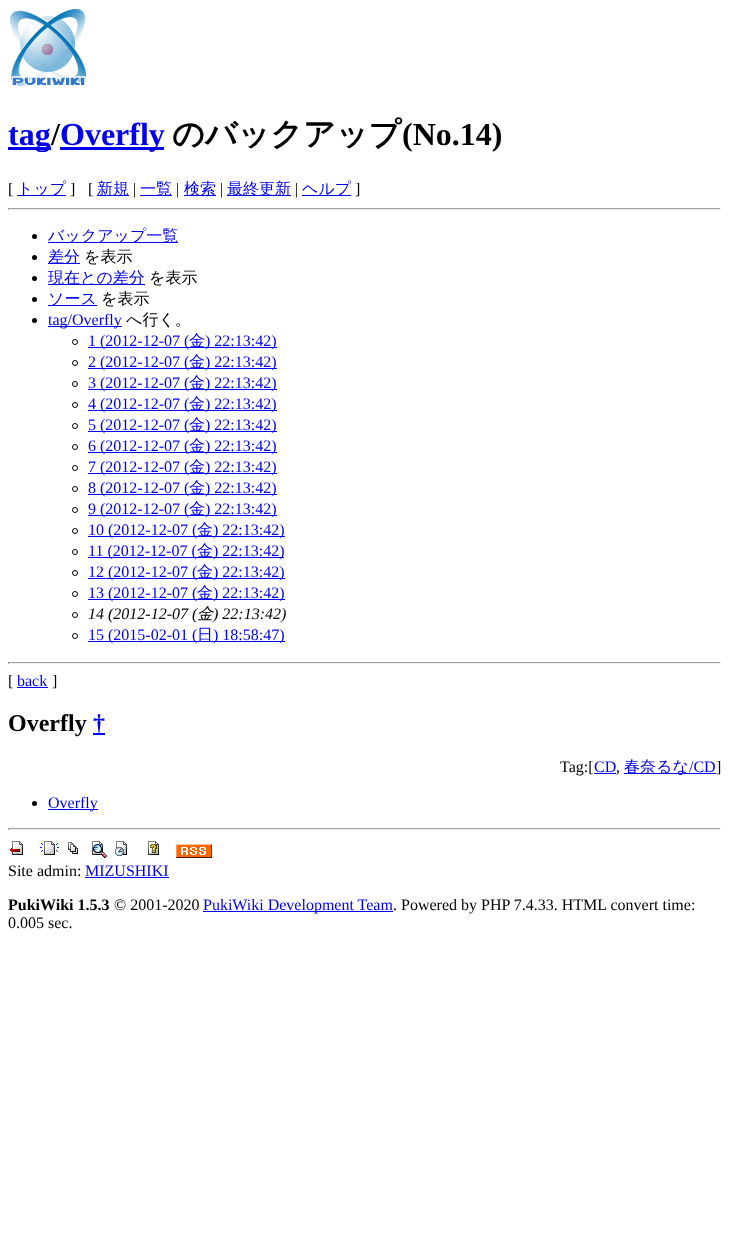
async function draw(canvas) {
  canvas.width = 729
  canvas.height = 1238
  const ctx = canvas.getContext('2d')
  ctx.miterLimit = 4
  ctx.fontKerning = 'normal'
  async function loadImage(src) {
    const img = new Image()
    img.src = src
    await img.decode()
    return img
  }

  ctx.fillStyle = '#fff'
  ctx.fillRect(0, 0, 729, 1238)
  ctx.drawImage(await loadImage('image0.png'), 10, 9, 76, 77)
  ctx.fillStyle = '#00e'
  ctx.fillRect(8, 147, 43, 3)
  ctx.font = 'bold 32px Liberation Serif'
  ctx.fillText('tag', 8, 145)
  ctx.fillStyle = '#000'
  ctx.fillText('/', 51, 145)
  ctx.fillStyle = '#00e'
  ctx.fillRect(60, 147, 104, 3)
  ctx.fillText('Overfly', 60, 145)
  ctx.font = 'bold 32px WenQuanYi Zen Hei'
  ctx.fillStyle = '#000'
  ctx.fillText('のバックアップ', 172, 145)
  ctx.font = 'bold 32px Liberation Serif'
  ctx.fillText('(No.14)', 402, 145)
  ctx.font = '16px Liberation Serif'
  ctx.fillText('[', 8, 194)
  ctx.fillStyle = '#00e'
  ctx.fillRect(17, 195, 49, 1)
  ctx.font = '500 16px WenQuanYi Zen Hei'
  ctx.fillText('トップ', 17, 194)
  ctx.font = '16px Liberation Serif'
  ctx.fillStyle = '#000'
  ctx.fillText(']', 70, 194)
  ctx.fillText('[', 88, 194)
  ctx.fillStyle = '#00e'
  ctx.fillRect(97, 195, 32, 1)
  ctx.font = '500 16px WenQuanYi Zen Hei'
  ctx.fillText('新規', 97, 194)
  ctx.font = '16px Liberation Serif'
  ctx.fillStyle = '#000'
  ctx.fillText('|', 133, 194)
  ctx.fillStyle = '#00e'
  ctx.fillRect(140, 195, 32, 1)
  ctx.font = '500 16px WenQuanYi Zen Hei'
  ctx.fillText('一覧', 140, 194)
  ctx.font = '16px Liberation Serif'
  ctx.fillStyle = '#000'
  ctx.fillText('|', 176, 194)
  ctx.fillStyle = '#00e'
  ctx.fillRect(184, 195, 32, 1)
  ctx.font = '500 16px WenQuanYi Zen Hei'
  ctx.fillText('検索', 184, 194)
  ctx.font = '16px Liberation Serif'
  ctx.fillStyle = '#000'
  ctx.fillText('|', 220, 194)
  ctx.fillStyle = '#00e'
  ctx.fillRect(227, 195, 64, 1)
  ctx.font = '500 16px WenQuanYi Zen Hei'
  ctx.fillText('最終更新', 227, 194)
  ctx.font = '16px Liberation Serif'
  ctx.fillStyle = '#000'
  ctx.fillText('|', 295, 194)
  ctx.fillStyle = '#00e'
  ctx.fillRect(302, 195, 49, 1)
  ctx.font = '500 16px WenQuanYi Zen Hei'
  ctx.fillText('ヘルプ', 302, 194)
  ctx.font = '16px Liberation Serif'
  ctx.fillStyle = '#000'
  ctx.fillText(']', 355, 194)
  ctx.fillStyle = '#9f9f9f'
  ctx.fillRect(8, 208, 713, 1)
  ctx.fillStyle = '#eee'
  ctx.fillRect(720, 208, 1, 2)
  ctx.fillRect(8, 209, 713, 1)
  ctx.fillStyle = '#9f9f9f'
  ctx.fillRect(8, 208, 1, 2)
  ctx.fillStyle = '#000'
  ctx.beginPath()
  ctx.arc(34.5, 236.5, 2.5, 0, 2 * Math.PI)
  ctx.fill()
  ctx.fillStyle = '#00e'
  ctx.fillRect(48, 242, 130, 1)
  ctx.font = '500 16px WenQuanYi Zen Hei'
  ctx.fillText('バックアップ一覧', 48, 241)
  ctx.fillStyle = '#000'
  ctx.beginPath()
  ctx.arc(34.5, 257.5, 2.5, 0, 2 * Math.PI)
  ctx.fill()
  ctx.fillStyle = '#00e'
  ctx.fillRect(48, 263, 32, 1)
  ctx.fillText('差分', 48, 262)
  ctx.fillStyle = '#000'
  ctx.fillText('を表示', 84, 262)
  ctx.beginPath()
  ctx.arc(34.5, 278.5, 2.5, 0, 2 * Math.PI)
  ctx.fill()
  ctx.fillStyle = '#00e'
  ctx.fillRect(48, 284, 97, 1)
  ctx.fillText('現在との差分', 48, 283)
  ctx.fillStyle = '#000'
  ctx.fillText('を表示', 149, 283)
  ctx.beginPath()
  ctx.arc(34.5, 299.5, 2.5, 0, 2 * Math.PI)
  ctx.fill()
  ctx.fillStyle = '#00e'
  ctx.fillRect(48, 305, 49, 1)
  ctx.fillText('ソース', 48, 304)
  ctx.fillStyle = '#000'
  ctx.fillText('を表示', 101, 304)
  ctx.beginPath()
  ctx.arc(34.5, 320.5, 2.5, 0, 2 * Math.PI)
  ctx.fill()
  ctx.fillStyle = '#00e'
  ctx.fillRect(48, 326, 74, 1)
  ctx.font = '16px Liberation Serif'
  ctx.fillText('tag/Overfly', 48, 325)
  ctx.font = '500 16px WenQuanYi Zen Hei'
  ctx.fillStyle = '#000'
  ctx.fillText('へ行く。', 126, 325)
  ctx.beginPath()
  ctx.arc(75, 342, 2.5, 0, 2 * Math.PI)
  ctx.strokeStyle = '#000'
  ctx.stroke()
  ctx.fillStyle = '#00e'
  ctx.fillRect(88, 347, 189, 1)
  ctx.font = '16px Liberation Serif'
  ctx.fillText('1 (2012-12-07 (', 88, 346)
  ctx.font = '500 16px WenQuanYi Zen Hei'
  ctx.fillText('金', 189, 346)
  ctx.font = '16px Liberation Serif'
  ctx.fillText(') 22:13:42)', 205, 346)
  ctx.beginPath()
  ctx.arc(75, 363, 2.5, 0, 2 * Math.PI)
  ctx.stroke()
  ctx.fillRect(88, 368, 189, 1)
  ctx.fillText('2 (2012-12-07 (', 88, 367)
  ctx.font = '500 16px WenQuanYi Zen Hei'
  ctx.fillText('金', 189, 367)
  ctx.font = '16px Liberation Serif'
  ctx.fillText(') 22:13:42)', 205, 367)
  ctx.beginPath()
  ctx.arc(75, 384, 2.5, 0, 2 * Math.PI)
  ctx.stroke()
  ctx.fillRect(88, 389, 189, 1)
  ctx.fillText('3 (2012-12-07 (', 88, 388)
  ctx.font = '500 16px WenQuanYi Zen Hei'
  ctx.fillText('金', 189, 388)
  ctx.font = '16px Liberation Serif'
  ctx.fillText(') 22:13:42)', 205, 388)
  ctx.beginPath()
  ctx.arc(75, 405, 2.5, 0, 2 * Math.PI)
  ctx.stroke()
  ctx.fillRect(88, 410, 189, 1)
  ctx.fillText('4 (2012-12-07 (', 88, 409)
  ctx.font = '500 16px WenQuanYi Zen Hei'
  ctx.fillText('金', 189, 409)
  ctx.font = '16px Liberation Serif'
  ctx.fillText(') 22:13:42)', 205, 409)
  ctx.beginPath()
  ctx.arc(75, 426, 2.5, 0, 2 * Math.PI)
  ctx.stroke()
  ctx.fillRect(88, 431, 189, 1)
  ctx.fillText('5 (2012-12-07 (', 88, 430)
  ctx.font = '500 16px WenQuanYi Zen Hei'
  ctx.fillText('金', 189, 430)
  ctx.font = '16px Liberation Serif'
  ctx.fillText(') 22:13:42)', 205, 430)
  ctx.beginPath()
  ctx.arc(75, 447, 2.5, 0, 2 * Math.PI)
  ctx.stroke()
  ctx.fillRect(88, 452, 189, 1)
  ctx.fillText('6 (2012-12-07 (', 88, 451)
  ctx.font = '500 16px WenQuanYi Zen Hei'
  ctx.fillText('金', 189, 451)
  ctx.font = '16px Liberation Serif'
  ctx.fillText(') 22:13:42)', 205, 451)
  ctx.beginPath()
  ctx.arc(75, 468, 2.5, 0, 2 * Math.PI)
  ctx.stroke()
  ctx.fillRect(88, 473, 189, 1)
  ctx.fillText('7 (2012-12-07 (', 88, 472)
  ctx.font = '500 16px WenQuanYi Zen Hei'
  ctx.fillText('金', 189, 472)
  ctx.font = '16px Liberation Serif'
  ctx.fillText(') 22:13:42)', 205, 472)
  ctx.beginPath()
  ctx.arc(75, 489, 2.5, 0, 2 * Math.PI)
  ctx.stroke()
  ctx.fillRect(88, 494, 189, 1)
  ctx.fillText('8 (2012-12-07 (', 88, 493)
  ctx.font = '500 16px WenQuanYi Zen Hei'
  ctx.fillText('金', 189, 493)
  ctx.font = '16px Liberation Serif'
  ctx.fillText(') 22:13:42)', 205, 493)
  ctx.beginPath()
  ctx.arc(75, 510, 2.5, 0, 2 * Math.PI)
  ctx.stroke()
  ctx.fillRect(88, 515, 189, 1)
  ctx.fillText('9 (2012-12-07 (', 88, 514)
  ctx.font = '500 16px WenQuanYi Zen Hei'
  ctx.fillText('金', 189, 514)
  ctx.font = '16px Liberation Serif'
  ctx.fillText(') 22:13:42)', 205, 514)
  ctx.beginPath()
  ctx.arc(75, 531, 2.5, 0, 2 * Math.PI)
  ctx.stroke()
  ctx.fillRect(88, 536, 197, 1)
  ctx.fillText('10 (2012-12-07 (', 88, 535)
  ctx.font = '500 16px WenQuanYi Zen Hei'
  ctx.fillText('金', 197, 535)
  ctx.font = '16px Liberation Serif'
  ctx.fillText(') 22:13:42)', 213, 535)
  ctx.beginPath()
  ctx.arc(75, 552, 2.5, 0, 2 * Math.PI)
  ctx.stroke()
  ctx.fillRect(88, 557, 196, 1)
  ctx.fillText('11 (2012-12-07 (', 88, 556)
  ctx.font = '500 16px WenQuanYi Zen Hei'
  ctx.fillText('金', 197, 556)
  ctx.font = '16px Liberation Serif'
  ctx.fillText(') 22:13:42)', 213, 556)
  ctx.beginPath()
  ctx.arc(75, 573, 2.5, 0, 2 * Math.PI)
  ctx.stroke()
  ctx.fillRect(88, 578, 197, 1)
  ctx.fillText('12 (2012-12-07 (', 88, 577)
  ctx.font = '500 16px WenQuanYi Zen Hei'
  ctx.fillText('金', 197, 577)
  ctx.font = '16px Liberation Serif'
  ctx.fillText(') 22:13:42)', 213, 577)
  ctx.beginPath()
  ctx.arc(75, 594, 2.5, 0, 2 * Math.PI)
  ctx.stroke()
  ctx.fillRect(88, 599, 197, 1)
  ctx.fillText('13 (2012-12-07 (', 88, 598)
  ctx.font = '500 16px WenQuanYi Zen Hei'
  ctx.fillText('金', 197, 598)
  ctx.font = '16px Liberation Serif'
  ctx.fillText(') 22:13:42)', 213, 598)
  ctx.beginPath()
  ctx.arc(75, 615, 2.5, 0, 2 * Math.PI)
  ctx.stroke()
  ctx.font = 'italic 16px Liberation Serif'
  ctx.fillStyle = '#000'
  ctx.fillText('14 (2012-12-07 (', 88, 619)
  ctx.font = 'italic 500 16px WenQuanYi Zen Hei'
  ctx.fillText('金', 197, 619)
  ctx.font = 'italic 16px Liberation Serif'
  ctx.fillText(') 22:13:42)', 213, 619)
  ctx.beginPath()
  ctx.arc(75, 636, 2.5, 0, 2 * Math.PI)
  ctx.stroke()
  ctx.fillStyle = '#00e'
  ctx.fillRect(88, 641, 197, 1)
  ctx.font = '16px Liberation Serif'
  ctx.fillText('15 (2015-02-01 (', 88, 640)
  ctx.font = '500 16px WenQuanYi Zen Hei'
  ctx.fillText('日', 197, 640)
  ctx.font = '16px Liberation Serif'
  ctx.fillText(') 18:58:47)', 213, 640)
  ctx.fillStyle = '#9f9f9f'
  ctx.fillRect(8, 662, 713, 1)
  ctx.fillStyle = '#eee'
  ctx.fillRect(720, 662, 1, 2)
  ctx.fillRect(8, 663, 713, 1)
  ctx.fillStyle = '#9f9f9f'
  ctx.fillRect(8, 662, 1, 2)
  ctx.fillStyle = '#000'
  ctx.fillText('[', 8, 686)
  ctx.fillStyle = '#00e'
  ctx.fillText('back', 17, 686)
  ctx.fillRect(17, 687, 31, 1)
  ctx.fillStyle = '#000'
  ctx.fillText(']', 52, 686)
  ctx.font = 'bold 24px Liberation Serif'
  ctx.fillText('Overfly', 8, 731)
  ctx.fillStyle = '#00e'
  ctx.fillRect(93, 733, 12, 2)
  ctx.fillText('†', 93, 731)
  ctx.font = '16px Liberation Serif'
  ctx.fillStyle = '#000'
  ctx.fillText('Tag:[', 560, 772)
  ctx.fillStyle = '#00e'
  ctx.fillText('CD', 594, 772)
  ctx.fillRect(594, 773, 22, 1)
  ctx.fillStyle = '#000'
  ctx.fillText(',', 616, 772)
  ctx.fillStyle = '#00e'
  ctx.fillRect(624, 773, 92, 1)
  ctx.font = '500 16px WenQuanYi Zen Hei'
  ctx.fillText('春奈るな', 624, 772)
  ctx.font = '16px Liberation Serif'
  ctx.fillText('/CD', 689, 772)
  ctx.fillStyle = '#000'
  ctx.fillText(']', 716, 772)
  ctx.beginPath()
  ctx.arc(34.5, 803.5, 2.5, 0, 2 * Math.PI)
  ctx.fill()
  ctx.fillStyle = '#00e'
  ctx.fillRect(48, 809, 50, 1)
  ctx.fillText('Overfly', 48, 808)
  ctx.fillStyle = '#9f9f9f'
  ctx.fillRect(8, 828, 713, 1)
  ctx.fillStyle = '#eee'
  ctx.fillRect(720, 828, 1, 2)
  ctx.fillRect(8, 829, 713, 1)
  ctx.fillStyle = '#9f9f9f'
  ctx.fillRect(8, 828, 1, 2)
  ctx.drawImage(await loadImage('image1.png'), 10, 841, 13, 14)
  ctx.drawImage(await loadImage('image2.png'), 40, 841, 19, 14)
  ctx.drawImage(await loadImage('image3.png'), 68, 842, 10, 12)
  ctx.drawImage(await loadImage('image4.png'), 92, 841, 15, 17)
  ctx.drawImage(await loadImage('image5.png'), 115, 841, 12, 15)
  ctx.drawImage(await loadImage('image6.png'), 148, 841, 11, 14)
  ctx.drawImage(await loadImage('image7.png'), 176, 844, 36, 14)
  ctx.fillStyle = '#000'
  ctx.fillText('Site admin:', 8, 876)
  ctx.fillStyle = '#00e'
  ctx.fillText('MIZUSHIKI', 85, 876)
  ctx.fillRect(85, 877, 84, 1)
  ctx.font = 'bold 16px Liberation Serif'
  ctx.fillStyle = '#000'
  ctx.fillText('PukiWiki 1.5.3', 8, 910)
  ctx.font = '16px Liberation Serif'
  ctx.fillText('© 2001-2020', 114, 910)
  ctx.fillStyle = '#00e'
  ctx.fillRect(203, 911, 190, 1)
  ctx.fillText('PukiWiki Development Team', 203, 910)
  ctx.fillStyle = '#000'
  ctx.fillText('. Powered by PHP 7.4.33. HTML convert time:', 393, 910)
  ctx.fillText('0.005 sec.', 8, 928)
}

draw(document.querySelector('canvas'))
